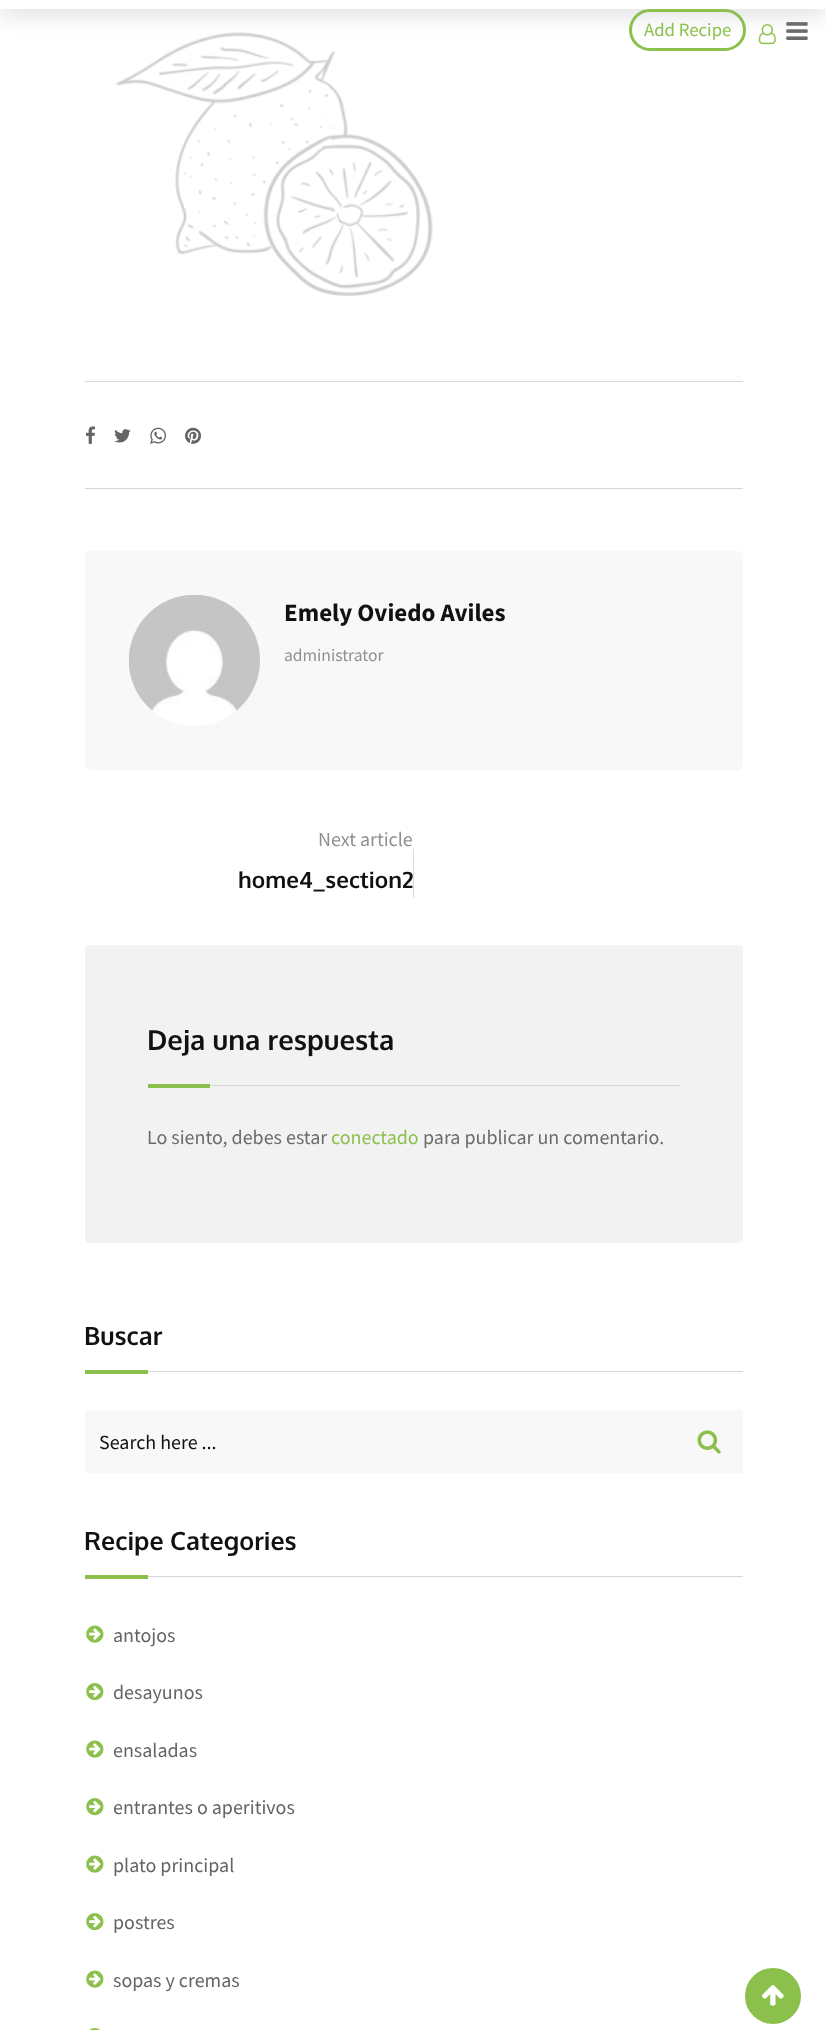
async function draw(canvas) {
  canvas.width = 826
  canvas.height = 2030
  const ctx = canvas.getContext('2d')
  ctx.miterLimit = 4
  ctx.fontKerning = 'normal'
  async function loadImage(src) {
    const img = new Image()
    img.src = src
    await img.decode()
    return img
  }

  ctx.fillStyle = '#fff'
  ctx.fillRect(0, 0, 826, 2030)
  ctx.drawImage(await loadImage('image2.png'), 116, 32, 317, 264)
  ctx.fillStyle = '#0000004d'
  ctx.filter = 'blur(12.5px)'
  ctx.beginPath()
  ctx.rect(0, 0, 826, 9)
  ctx.fill()
  ctx.filter = 'none'
  ctx.fillStyle = '#fff'
  ctx.fillRect(0, 0, 826, 9)
  ctx.beginPath()
  ctx.roundRect(630.5, 10.5, 114, 39, 19.5)
  ctx.strokeStyle = '#8cc04c'
  ctx.lineWidth = 3
  ctx.stroke()
  ctx.font = '18.75px Source Sans Pro'
  ctx.fillStyle = '#8cc04c'
  ctx.fillText('Add Recipe', 644, 36)
  ctx.drawImage(await loadImage('image0.png'), 758, 24, 18, 21)
  ctx.drawImage(await loadImage('image1.png'), 786, 22, 22, 18)
  ctx.fillStyle = '#d7d7d7'
  ctx.fillRect(85, 381, 658, 1)
  ctx.fillRect(85, 488, 658, 1)
  ctx.drawImage(await loadImage('image3.png'), 86, 426, 10, 18)
  ctx.drawImage(await loadImage('image4.png'), 114, 429, 17, 14)
  ctx.drawImage(await loadImage('image5.png'), 150, 427, 17, 17)
  ctx.drawImage(await loadImage('image6.png'), 185, 427, 17, 17)
  ctx.fillStyle = '#f8f8f8'
  ctx.beginPath()
  ctx.roundRect(85, 551, 658, 219, 5)
  ctx.fill()
  ctx.drawImage(await loadImage('image7.png'), 129, 595, 131, 131)
  ctx.font = 'bold 25px Source Sans Pro'
  ctx.fillStyle = '#111'
  ctx.fillText('Emely Oviedo Aviles', 284, 621)
  ctx.font = '17.5px Source Sans Pro'
  ctx.fillStyle = '#909090'
  ctx.fillText('administrator', 284, 661)
  ctx.font = '20px Source Sans Pro'
  ctx.fillText('Next article', 318, 846)
  ctx.font = 'bold 22.5px Oxygen'
  ctx.fillStyle = '#111'
  ctx.fillText('home4_section2', 238, 888)
  ctx.fillStyle = '#dcdcdc'
  ctx.fillRect(413, 849, 1, 49)
  ctx.fillStyle = '#f2f2f2'
  ctx.beginPath()
  ctx.roundRect(85, 945, 658, 298, 5)
  ctx.fill()
  ctx.fillStyle = '#d7d7d7'
  ctx.fillRect(210, 1085, 470, 1)
  ctx.font = 'bold 27.5px Oxygen'
  ctx.fillStyle = '#111'
  ctx.fillText('Deja una respuesta', 147, 1050)
  ctx.fillStyle = '#8cc04c'
  ctx.fillRect(148, 1084, 62, 4)
  ctx.font = '20px Source Sans Pro'
  ctx.fillStyle = '#6b6b6b'
  ctx.fillText('Lo siento, debes estar', 147, 1144)
  ctx.fillStyle = '#8cc04c'
  ctx.fillText('conectado', 331, 1144)
  ctx.fillStyle = '#6b6b6b'
  ctx.fillText('para publicar un comentario.', 423, 1144)
  ctx.fillStyle = '#d7d7d7'
  ctx.fillRect(148, 1371, 595, 1)
  ctx.font = 'bold 25px Oxygen'
  ctx.fillStyle = '#111'
  ctx.fillText('Buscar', 84, 1345)
  ctx.fillStyle = '#8cc04c'
  ctx.fillRect(85, 1370, 63, 4)
  ctx.fillStyle = '#f8f8f8'
  ctx.fillRect(85, 1410, 658, 63)
  ctx.font = '20px Source Sans Pro'
  ctx.fillStyle = '#111'
  ctx.fillText('Search here ...', 99, 1449)
  ctx.drawImage(await loadImage('image8.png'), 697, 1430, 24, 24)
  ctx.fillStyle = '#d7d7d7'
  ctx.fillRect(148, 1576, 595, 1)
  ctx.font = 'bold 25px Oxygen'
  ctx.fillStyle = '#111'
  ctx.fillText('Recipe Categories', 84, 1550)
  ctx.fillStyle = '#8cc04c'
  ctx.fillRect(85, 1575, 63, 4)
  ctx.drawImage(await loadImage('image9.png'), 86, 1625, 18, 18)
  ctx.font = '20px Source Sans Pro'
  ctx.fillStyle = '#646464'
  ctx.fillText('antojos', 113, 1642)
  ctx.drawImage(await loadImage('image10.png'), 86, 1683, 18, 18)
  ctx.fillText('desayunos', 113, 1699)
  ctx.drawImage(await loadImage('image9.png'), 86, 1740, 18, 18)
  ctx.fillText('ensaladas', 113, 1757)
  ctx.drawImage(await loadImage('image10.png'), 86, 1798, 18, 18)
  ctx.fillText('entrantes o aperitivos', 113, 1814)
  ctx.drawImage(await loadImage('image9.png'), 86, 1855, 18, 18)
  ctx.fillText('plato principal', 113, 1872)
  ctx.drawImage(await loadImage('image10.png'), 86, 1913, 18, 18)
  ctx.fillText('postres', 113, 1929)
  ctx.drawImage(await loadImage('image9.png'), 86, 1970, 18, 18)
  ctx.fillText('sopas y cremas', 113, 1987)
  ctx.drawImage(await loadImage('image11.png'), 89, 2028, 11, 2)
  ctx.fillStyle = '#8cc04c'
  ctx.beginPath()
  ctx.arc(773, 1996, 26.5, 0, 2 * Math.PI)
  ctx.fill()
  ctx.stroke()
  ctx.drawImage(await loadImage('image12.png'), 762, 1985, 22, 21)
}

draw(document.querySelector('canvas'))
